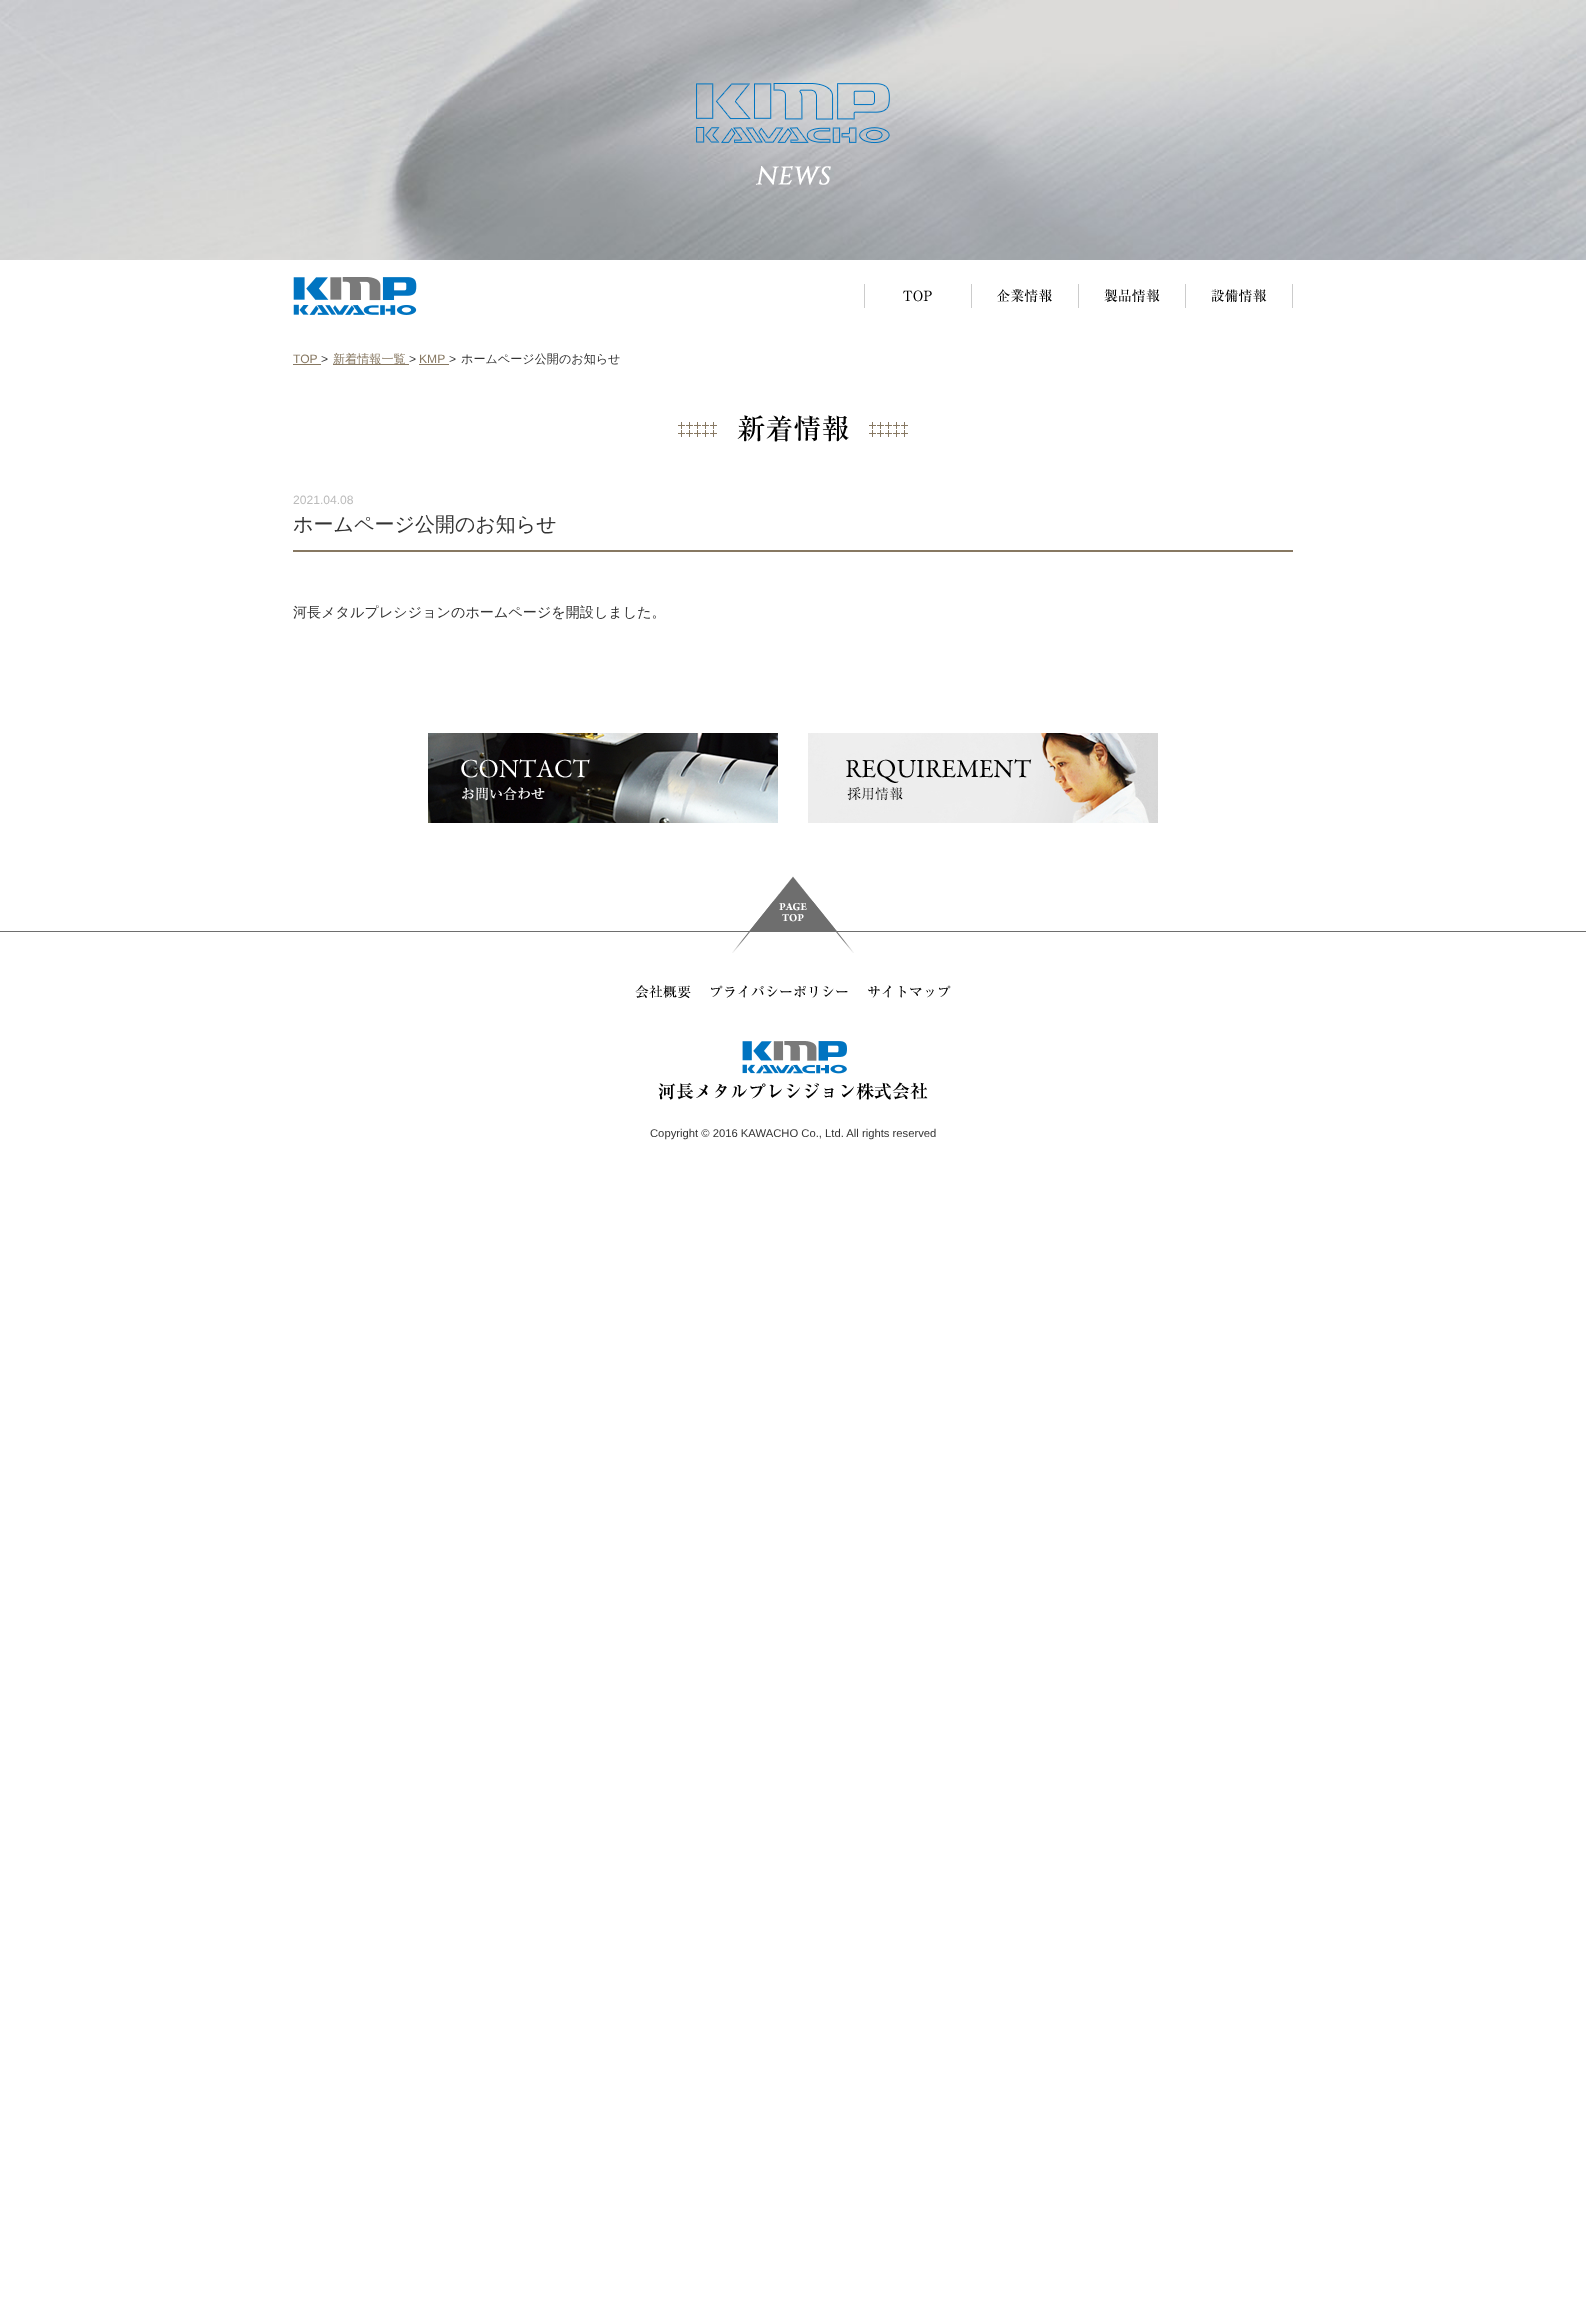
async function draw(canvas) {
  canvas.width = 1586
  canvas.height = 2303
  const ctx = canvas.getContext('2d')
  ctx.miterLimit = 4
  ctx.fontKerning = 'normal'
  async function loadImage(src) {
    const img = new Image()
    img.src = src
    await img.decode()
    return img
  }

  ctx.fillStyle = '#fff'
  ctx.fillRect(0, 0, 1586, 2303)
  ctx.drawImage(await loadImage('image0.png'), 0, 0, 1586, 260)
  ctx.drawImage(await loadImage('image1.png'), 696, 83, 194, 61)
  ctx.drawImage(await loadImage('image2.png'), 756, 166, 75, 19)
  ctx.drawImage(await loadImage('image3.png'), 293, 277, 124, 38)
  ctx.fillStyle = '#ccc'
  ctx.fillRect(971, 284, 1, 24)
  ctx.fillRect(864, 284, 1, 24)
  ctx.drawImage(await loadImage('image4.png'), 903, 290, 29, 12)
  ctx.fillRect(1078, 284, 1, 24)
  ctx.drawImage(await loadImage('image5.png'), 997, 289, 55, 14)
  ctx.fillRect(1185, 284, 1, 24)
  ctx.drawImage(await loadImage('image6.png'), 1104, 289, 56, 14)
  ctx.fillRect(1292, 284, 1, 24)
  ctx.drawImage(await loadImage('image7.png'), 1211, 289, 56, 14)
  ctx.font = '12.1px Liberation Sans'
  ctx.fillStyle = '#877862'
  ctx.fillText('TOP', 293, 363)
  ctx.fillRect(293, 364, 28, 1)
  ctx.fillStyle = '#333'
  ctx.fillText('>', 321, 363)
  ctx.fillStyle = '#877862'
  ctx.fillRect(333, 364, 76, 1)
  ctx.font = '500 12.1px WenQuanYi Zen Hei'
  ctx.fillText('新着情報一覧', 333, 363)
  ctx.font = '12.1px Liberation Sans'
  ctx.fillStyle = '#333'
  ctx.fillText('>', 409, 363)
  ctx.fillStyle = '#877862'
  ctx.fillText('KMP', 419, 363)
  ctx.fillRect(419, 364, 30, 1)
  ctx.fillStyle = '#333'
  ctx.fillText('>', 449, 363)
  ctx.font = '500 12.1px WenQuanYi Zen Hei'
  ctx.fillText('ホームページ公開のお知らせ', 461, 363)
  ctx.drawImage(await loadImage('image8.png'), 678, 422, 39, 15)
  ctx.drawImage(await loadImage('image9.png'), 737, 415, 112, 27)
  ctx.drawImage(await loadImage('image8.png'), 869, 422, 39, 15)
  ctx.font = '12.1px Liberation Sans'
  ctx.fillStyle = '#bbb'
  ctx.fillText('2021.04.08', 293, 504)
  ctx.fillStyle = '#877862'
  ctx.fillRect(293, 550, 1000, 2)
  ctx.font = '500 20px WenQuanYi Zen Hei'
  ctx.fillStyle = '#333'
  ctx.fillText('ホームページ公開のお知らせ', 293, 531)
  ctx.font = '500 14.1px WenQuanYi Zen Hei'
  ctx.fillText('河長メタルプレシジョンのホームページを開設しました。', 293, 617)
  ctx.drawImage(await loadImage('image10.png'), 428, 733, 350, 90)
  ctx.drawImage(await loadImage('image11.png'), 808, 733, 350, 90)
  ctx.fillStyle = '#6e6e6e'
  ctx.fillRect(0, 931, 1586, 1)
  ctx.drawImage(await loadImage('image12.png'), 732, 876, 122, 77)
  ctx.drawImage(await loadImage('image13.png'), 635, 985, 56, 13)
  ctx.drawImage(await loadImage('image14.png'), 711, 985, 137, 13)
  ctx.drawImage(await loadImage('image15.png'), 868, 985, 83, 13)
  ctx.drawImage(await loadImage('image16.png'), 658, 1041, 270, 59)
  ctx.font = '11.25px Liberation Sans'
  ctx.fillStyle = '#333'
  ctx.fillText('Copyright © 2016 KAWACHO Co., Ltd. All rights reserved', 650, 1137)
}

draw(document.querySelector('canvas'))
